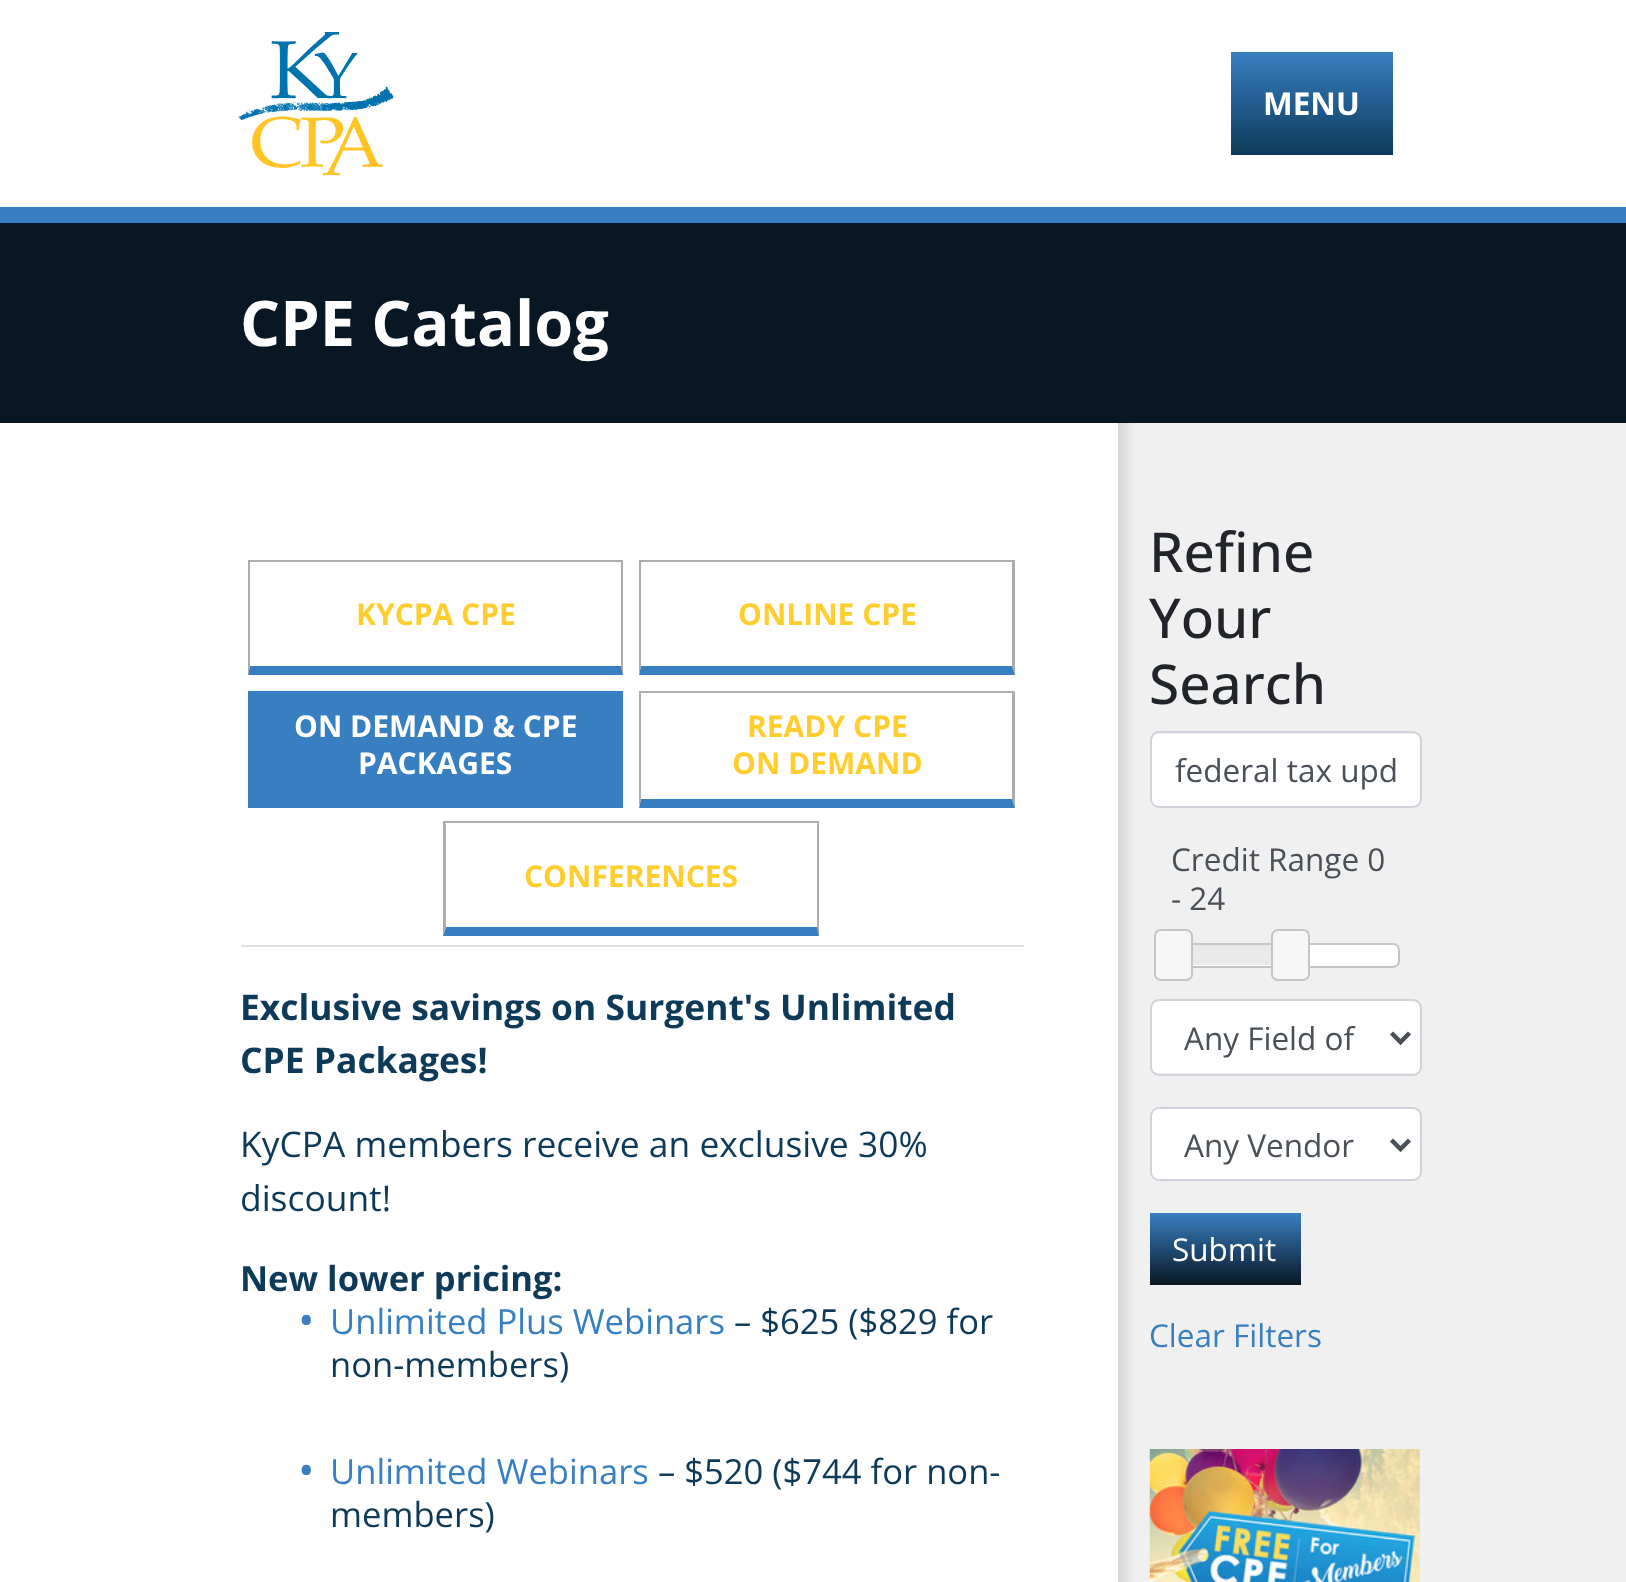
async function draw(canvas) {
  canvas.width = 1626
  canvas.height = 1582
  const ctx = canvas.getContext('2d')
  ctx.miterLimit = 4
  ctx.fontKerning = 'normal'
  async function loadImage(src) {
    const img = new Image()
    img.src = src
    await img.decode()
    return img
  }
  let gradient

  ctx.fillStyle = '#fff'
  ctx.fillRect(0, 0, 1626, 1582)
  ctx.drawImage(await loadImage('image0.png'), 237, 32, 157, 144)
  gradient = ctx.createLinearGradient(1312, 52, 1312, 155)
  gradient.addColorStop(0, '#387fc2')
  gradient.addColorStop(1, '#0d3a59')
  ctx.fillStyle = gradient
  ctx.fillRect(1231, 52, 162, 103)
  ctx.font = 'bold 31.5px Open Sans'
  ctx.fillStyle = '#fff'
  ctx.fillText('MENU', 1263, 115)
  ctx.fillStyle = '#091724'
  ctx.fillRect(0, 223, 1626, 200)
  ctx.fillStyle = '#387fc2'
  ctx.fillRect(0, 207, 1626, 16)
  ctx.font = 'bold 63px Open Sans'
  ctx.fillStyle = '#fff'
  ctx.fillText('CPE Catalog', 240, 346)
  ctx.fillStyle = '#dee2e6'
  ctx.fillRect(241, 945, 783, 2)
  ctx.fillStyle = '#acacac'
  ctx.fillRect(248, 560, 375, 2)
  ctx.beginPath()
  ctx.moveTo(623, 560)
  ctx.lineTo(623, 675)
  ctx.lineTo(621, 666)
  ctx.lineTo(621, 562)
  ctx.closePath()
  ctx.fill()
  ctx.fillStyle = '#387fc2'
  ctx.beginPath()
  ctx.moveTo(623, 675)
  ctx.lineTo(248, 675)
  ctx.lineTo(250, 666)
  ctx.lineTo(621, 666)
  ctx.closePath()
  ctx.fill()
  ctx.fillStyle = '#acacac'
  ctx.beginPath()
  ctx.moveTo(248, 675)
  ctx.lineTo(248, 560)
  ctx.lineTo(250, 562)
  ctx.lineTo(250, 666)
  ctx.closePath()
  ctx.fill()
  ctx.font = 'bold 30px Open Sans'
  ctx.fillStyle = '#ffce2e'
  ctx.fillText('KYCPA CPE', 356, 625)
  ctx.fillStyle = '#acacac'
  ctx.fillRect(639, 560, 376, 2)
  ctx.beginPath()
  ctx.moveTo(1015, 560)
  ctx.lineTo(1015, 675)
  ctx.lineTo(1012, 666)
  ctx.lineTo(1012, 562)
  ctx.closePath()
  ctx.fill()
  ctx.fillStyle = '#387fc2'
  ctx.beginPath()
  ctx.moveTo(1015, 675)
  ctx.lineTo(639, 675)
  ctx.lineTo(641, 666)
  ctx.lineTo(1012, 666)
  ctx.closePath()
  ctx.fill()
  ctx.fillStyle = '#acacac'
  ctx.beginPath()
  ctx.moveTo(639, 675)
  ctx.lineTo(639, 560)
  ctx.lineTo(641, 562)
  ctx.lineTo(641, 666)
  ctx.closePath()
  ctx.fill()
  ctx.fillStyle = '#ffce2e'
  ctx.fillText('ONLINE CPE', 738, 625)
  ctx.fillStyle = '#387fc2'
  ctx.fillRect(250, 693, 371, 106)
  ctx.fillRect(248, 691, 375, 2)
  ctx.fillRect(621, 691, 2, 108)
  ctx.fillRect(250, 799, 373, 9)
  ctx.fillRect(248, 691, 2, 117)
  ctx.fillStyle = '#fff'
  ctx.fillText('ON DEMAND & CPE', 294, 737)
  ctx.fillText('PACKAGES', 358, 774)
  ctx.fillStyle = '#acacac'
  ctx.fillRect(639, 691, 376, 2)
  ctx.beginPath()
  ctx.moveTo(1015, 691)
  ctx.lineTo(1015, 808)
  ctx.lineTo(1012, 799)
  ctx.lineTo(1012, 693)
  ctx.closePath()
  ctx.fill()
  ctx.fillStyle = '#387fc2'
  ctx.beginPath()
  ctx.moveTo(1015, 808)
  ctx.lineTo(639, 808)
  ctx.lineTo(641, 799)
  ctx.lineTo(1012, 799)
  ctx.closePath()
  ctx.fill()
  ctx.fillStyle = '#acacac'
  ctx.beginPath()
  ctx.moveTo(639, 808)
  ctx.lineTo(639, 691)
  ctx.lineTo(641, 693)
  ctx.lineTo(641, 799)
  ctx.closePath()
  ctx.fill()
  ctx.fillStyle = '#ffce2e'
  ctx.fillText('READY CPE', 747, 737)
  ctx.fillText('ON DEMAND', 732, 774)
  ctx.fillStyle = '#acacac'
  ctx.fillRect(443, 821, 376, 2)
  ctx.beginPath()
  ctx.moveTo(819, 821)
  ctx.lineTo(819, 936)
  ctx.lineTo(817, 927)
  ctx.lineTo(817, 824)
  ctx.closePath()
  ctx.fill()
  ctx.fillStyle = '#387fc2'
  ctx.beginPath()
  ctx.moveTo(819, 936)
  ctx.lineTo(443, 936)
  ctx.lineTo(446, 927)
  ctx.lineTo(817, 927)
  ctx.closePath()
  ctx.fill()
  ctx.fillStyle = '#acacac'
  ctx.beginPath()
  ctx.moveTo(443, 936)
  ctx.lineTo(443, 821)
  ctx.lineTo(446, 824)
  ctx.lineTo(446, 927)
  ctx.closePath()
  ctx.fill()
  ctx.fillStyle = '#ffce2e'
  ctx.fillText('CONFERENCES', 524, 887)
  ctx.font = 'bold 35.4px Open Sans'
  ctx.fillStyle = '#0d3a59'
  ctx.fillText('Exclusive savings on Surgent\'s Unlimited', 240, 1020)
  ctx.fillText('CPE Packages!', 240, 1073)
  ctx.font = '35.4px Open Sans'
  ctx.fillText('KyCPA members receive an exclusive 30%', 240, 1157)
  ctx.fillText('discount!', 240, 1211)
  ctx.font = 'bold 34.6px Open Sans'
  ctx.fillText('New lower pricing:', 240, 1291)
  ctx.font = '44px Open Sans'
  ctx.fillStyle = '#387fc2'
  ctx.fillText('•', 298, 1336)
  ctx.font = '34.6px Open Sans'
  ctx.fillText('Unlimited Plus Webinars', 330, 1334)
  ctx.fillStyle = '#0d3a59'
  ctx.fillText('– $625 ($829 for', 734, 1334)
  ctx.fillText('non-members)', 330, 1377)
  ctx.font = '44px Open Sans'
  ctx.fillStyle = '#387fc2'
  ctx.fillText('•', 298, 1486)
  ctx.font = '34.6px Open Sans'
  ctx.fillText('Unlimited Webinars', 330, 1484)
  ctx.fillStyle = '#0d3a59'
  ctx.fillText('– $520 ($744 for non-', 658, 1484)
  ctx.fillText('members)', 330, 1527)
  gradient = ctx.createLinearGradient(1118, 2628, 1422, 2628)
  gradient.addColorStop(0, '#d5d5d5')
  gradient.addColorStop(0.06, '#f0f0f0')
  ctx.fillStyle = gradient
  ctx.fillRect(1118, 423, 304, 1159)
  ctx.font = '500 55px Open Sans'
  ctx.fillStyle = '#212529'
  ctx.fillText('Refine', 1149, 572)
  ctx.fillText('Your', 1149, 638)
  ctx.fillText('Search', 1149, 704)
  ctx.fillStyle = '#fff'
  ctx.beginPath()
  ctx.roundRect(1152, 734, 268, 72, 6)
  ctx.fill()
  ctx.beginPath()
  ctx.roundRect(1151, 732, 270, 75, 8)
  ctx.strokeStyle = '#ced4da'
  ctx.lineWidth = 2
  ctx.stroke()
  ctx.font = '31.5px Open Sans'
  ctx.fillStyle = '#495057'
  ctx.fillText('federal tax upd', 1175, 782)
  ctx.fillText('Credit Range 0', 1171, 871)
  ctx.fillText('- 24', 1171, 910)
  ctx.fillStyle = '#fff'
  ctx.beginPath()
  ctx.roundRect(1173, 944, 226, 23, 6)
  ctx.fill()
  ctx.strokeStyle = '#c5c5c5'
  ctx.stroke()
  ctx.fillStyle = '#f6f6f6'
  ctx.beginPath()
  ctx.roundRect(1155, 930, 37, 50, 6)
  ctx.fill()
  ctx.stroke()
  ctx.fillStyle = '#e9e9e9'
  ctx.fillRect(1193, 945, 78, 20)
  ctx.fillStyle = '#f6f6f6'
  ctx.beginPath()
  ctx.roundRect(1272, 930, 37, 50, 6)
  ctx.fill()
  ctx.stroke()
  ctx.fillStyle = '#fff'
  ctx.beginPath()
  ctx.roundRect(1152, 1001, 268, 72, 6)
  ctx.fill()
  ctx.beginPath()
  ctx.roundRect(1151, 1000, 270, 75, 8)
  ctx.strokeStyle = '#ced4da'
  ctx.stroke()
  ctx.beginPath()
  ctx.moveTo(1391.5, 1033)
  ctx.lineTo(1400.5, 1042)
  ctx.lineTo(1409.5, 1033)
  ctx.strokeStyle = '#495057'
  ctx.lineWidth = 4.5
  ctx.stroke()
  ctx.fillStyle = '#495057'
  ctx.fillText('Any Field of', 1184, 1050)
  ctx.fillStyle = '#fff'
  ctx.beginPath()
  ctx.roundRect(1152, 1109, 268, 70, 6)
  ctx.fill()
  ctx.beginPath()
  ctx.roundRect(1151, 1108, 270, 72, 8)
  ctx.strokeStyle = '#ced4da'
  ctx.lineWidth = 2
  ctx.stroke()
  ctx.beginPath()
  ctx.moveTo(1391.5, 1140)
  ctx.lineTo(1400.5, 1149)
  ctx.lineTo(1409.5, 1140)
  ctx.strokeStyle = '#495057'
  ctx.lineWidth = 4.5
  ctx.stroke()
  ctx.fillStyle = '#495057'
  ctx.fillText('Any Vendor', 1184, 1157)
  gradient = ctx.createLinearGradient(1225, 1213, 1225, 1285)
  gradient.addColorStop(0, '#387fc2')
  gradient.addColorStop(1, '#091724')
  ctx.fillStyle = gradient
  ctx.fillRect(1150, 1213, 151, 72)
  ctx.fillStyle = '#fff'
  ctx.fillText('Submit', 1172, 1261)
  ctx.fillStyle = '#387fc2'
  ctx.fillText('Clear Filters', 1149, 1347)
  ctx.fillStyle = '#f0f0f0'
  ctx.fillRect(1422, 423, 204, 1159)
  ctx.drawImage(await loadImage('image1.png'), 1149, 1449, 271, 133)
}

draw(document.querySelector('canvas'))
